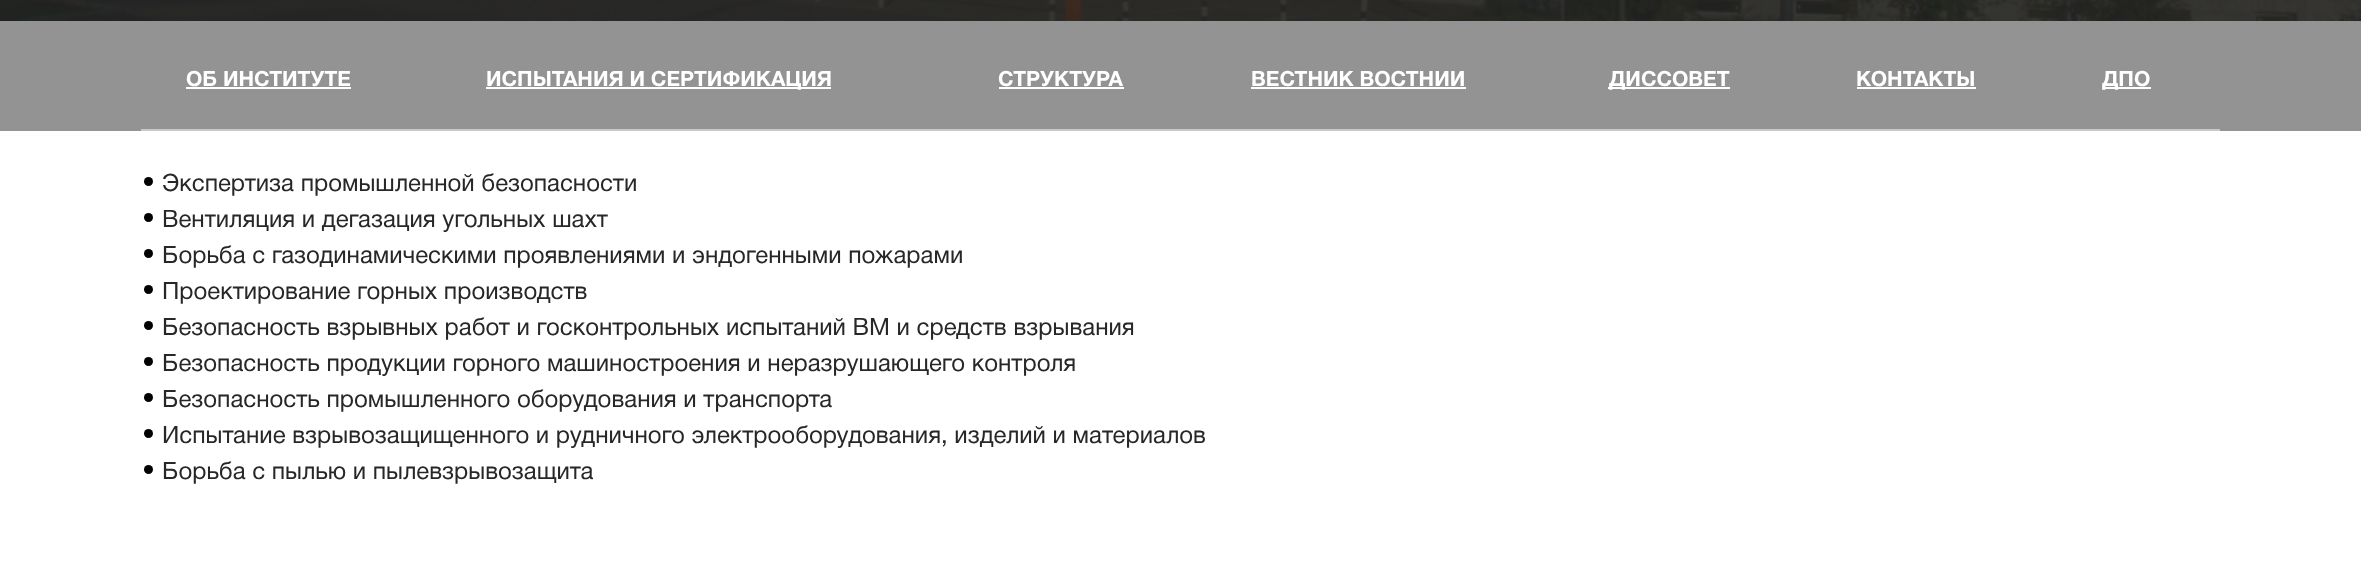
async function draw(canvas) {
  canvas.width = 2361
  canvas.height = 587
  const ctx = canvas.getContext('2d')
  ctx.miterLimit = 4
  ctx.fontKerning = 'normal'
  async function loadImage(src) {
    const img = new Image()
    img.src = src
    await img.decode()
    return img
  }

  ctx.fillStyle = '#fff'
  ctx.fillRect(0, 0, 2361, 587)
  ctx.fillStyle = '#939393'
  ctx.fillRect(0, 21, 2361, 110)
  ctx.fillStyle = '#c9c9c9'
  ctx.fillRect(141, 129, 2079, 2)
  ctx.font = 'bold 21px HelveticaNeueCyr'
  ctx.fillStyle = '#fff'
  ctx.fillText('ОБ ИНСТИТУТЕ', 186, 86)
  ctx.fillRect(186, 87, 165, 2)
  ctx.fillRect(486, 87, 345, 2)
  ctx.fillText('ИСПЫТАНИЯ И СЕРТИФИКАЦИЯ', 486, 86)
  ctx.fillText('СТРУКТУРА', 998, 86)
  ctx.fillRect(999, 87, 125, 2)
  ctx.fillText('ВЕСТНИК ВОСТНИИ', 1251, 86)
  ctx.fillRect(1251, 87, 215, 2)
  ctx.fillRect(1608, 87, 122, 2)
  ctx.fillText('ДИССОВЕТ', 1609, 86)
  ctx.fillText('КОНТАКТЫ', 1856, 86)
  ctx.fillRect(1857, 87, 119, 2)
  ctx.fillRect(2103, 87, 48, 2)
  ctx.fillText('ДПО', 2102, 86)
  ctx.drawImage(await loadImage('image0.png'), 0, 0, 2361, 21)
  ctx.fillStyle = '#000'
  ctx.beginPath()
  ctx.arc(148.5, 181.5, 4.5, 0, 2 * Math.PI)
  ctx.fill()
  ctx.font = '24px HelveticaNeueCyr'
  ctx.fillStyle = '#262726'
  ctx.fillText('Экспертиза промышленной безопасности', 162, 191)
  ctx.fillStyle = '#000'
  ctx.beginPath()
  ctx.arc(148.5, 217.5, 4.5, 0, 2 * Math.PI)
  ctx.fill()
  ctx.fillStyle = '#262726'
  ctx.fillText('Вентиляция и дегазация угольных шахт', 162, 227)
  ctx.fillStyle = '#000'
  ctx.beginPath()
  ctx.arc(148.5, 253.5, 4.5, 0, 2 * Math.PI)
  ctx.fill()
  ctx.fillStyle = '#262726'
  ctx.fillText('Борьба с газодинамическими проявлениями и эндогенными пожарами', 162, 263)
  ctx.fillStyle = '#000'
  ctx.beginPath()
  ctx.arc(148.5, 289.5, 4.5, 0, 2 * Math.PI)
  ctx.fill()
  ctx.fillStyle = '#262726'
  ctx.fillText('Проектирование горных производств', 162, 299)
  ctx.fillStyle = '#000'
  ctx.beginPath()
  ctx.arc(148.5, 325.5, 4.5, 0, 2 * Math.PI)
  ctx.fill()
  ctx.fillStyle = '#262726'
  ctx.fillText('Безопасность взрывных работ и госконтрольных испытаний ВМ и средств взрывания', 162, 335)
  ctx.fillStyle = '#000'
  ctx.beginPath()
  ctx.arc(148.5, 361.5, 4.5, 0, 2 * Math.PI)
  ctx.fill()
  ctx.fillStyle = '#262726'
  ctx.fillText('Безопасность продукции горного машиностроения и неразрушающего контроля', 162, 371)
  ctx.fillStyle = '#000'
  ctx.beginPath()
  ctx.arc(148.5, 397.5, 4.5, 0, 2 * Math.PI)
  ctx.fill()
  ctx.fillStyle = '#262726'
  ctx.fillText('Безопасность промышленного оборудования и транспорта', 162, 407)
  ctx.fillStyle = '#000'
  ctx.beginPath()
  ctx.arc(148.5, 433.5, 4.5, 0, 2 * Math.PI)
  ctx.fill()
  ctx.fillStyle = '#262726'
  ctx.fillText('Испытание взрывозащищенного и рудничного электрооборудования, изделий и материалов', 162, 443)
  ctx.fillStyle = '#000'
  ctx.beginPath()
  ctx.arc(148.5, 469.5, 4.5, 0, 2 * Math.PI)
  ctx.fill()
  ctx.fillStyle = '#262726'
  ctx.fillText('Борьба с пылью и пылевзрывозащита', 162, 479)
}

draw(document.querySelector('canvas'))
